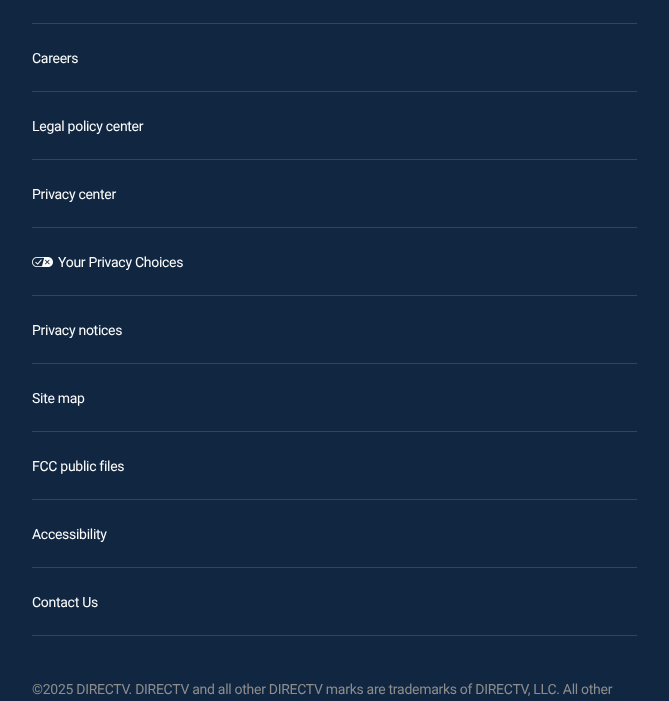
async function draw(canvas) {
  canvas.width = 669
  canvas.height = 701
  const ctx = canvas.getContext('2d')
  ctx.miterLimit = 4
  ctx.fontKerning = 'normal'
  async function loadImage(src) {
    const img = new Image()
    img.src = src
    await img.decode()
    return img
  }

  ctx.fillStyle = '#102641'
  ctx.fillRect(0, 0, 669, 701)
  ctx.fillStyle = '#364558'
  ctx.fillRect(32, 23, 605, 1)
  ctx.letterSpacing = '-0.28px'
  ctx.font = '14px Roboto'
  ctx.fillStyle = '#fefefe'
  ctx.fillText('Careers', 32, 63)
  ctx.fillStyle = '#364558'
  ctx.fillRect(32, 91, 605, 1)
  ctx.fillStyle = '#fefefe'
  ctx.fillText('Legal policy center', 32, 131)
  ctx.fillStyle = '#364558'
  ctx.fillRect(32, 159, 605, 1)
  ctx.fillStyle = '#fefefe'
  ctx.fillText('Privacy center', 32, 199)
  ctx.fillStyle = '#364558'
  ctx.fillRect(32, 227, 605, 1)
  ctx.drawImage(await loadImage('image0.png'), 32, 257, 21, 10)
  ctx.fillStyle = '#fefefe'
  ctx.fillText('Your Privacy Choices', 58, 267)
  ctx.fillStyle = '#364558'
  ctx.fillRect(32, 295, 605, 1)
  ctx.fillStyle = '#fefefe'
  ctx.fillText('Privacy notices', 32, 335)
  ctx.fillStyle = '#364558'
  ctx.fillRect(32, 363, 605, 1)
  ctx.fillStyle = '#fefefe'
  ctx.fillText('Site map', 32, 403)
  ctx.fillStyle = '#364558'
  ctx.fillRect(32, 431, 605, 1)
  ctx.fillStyle = '#fefefe'
  ctx.fillText('FCC public files', 32, 471)
  ctx.fillStyle = '#364558'
  ctx.fillRect(32, 499, 605, 1)
  ctx.fillStyle = '#fefefe'
  ctx.fillText('Accessibility', 32, 539)
  ctx.fillStyle = '#364558'
  ctx.fillRect(32, 567, 605, 1)
  ctx.fillStyle = '#fefefe'
  ctx.fillText('Contact Us', 32, 607)
  ctx.fillStyle = '#364558'
  ctx.fillRect(32, 635, 605, 1)
  ctx.fillStyle = '#8d8d8d'
  ctx.fillText('©2025 DIRECTV. DIRECTV and all other DIRECTV marks are trademarks of DIRECTV, LLC. All other', 32, 694)
}

draw(document.querySelector('canvas'))
